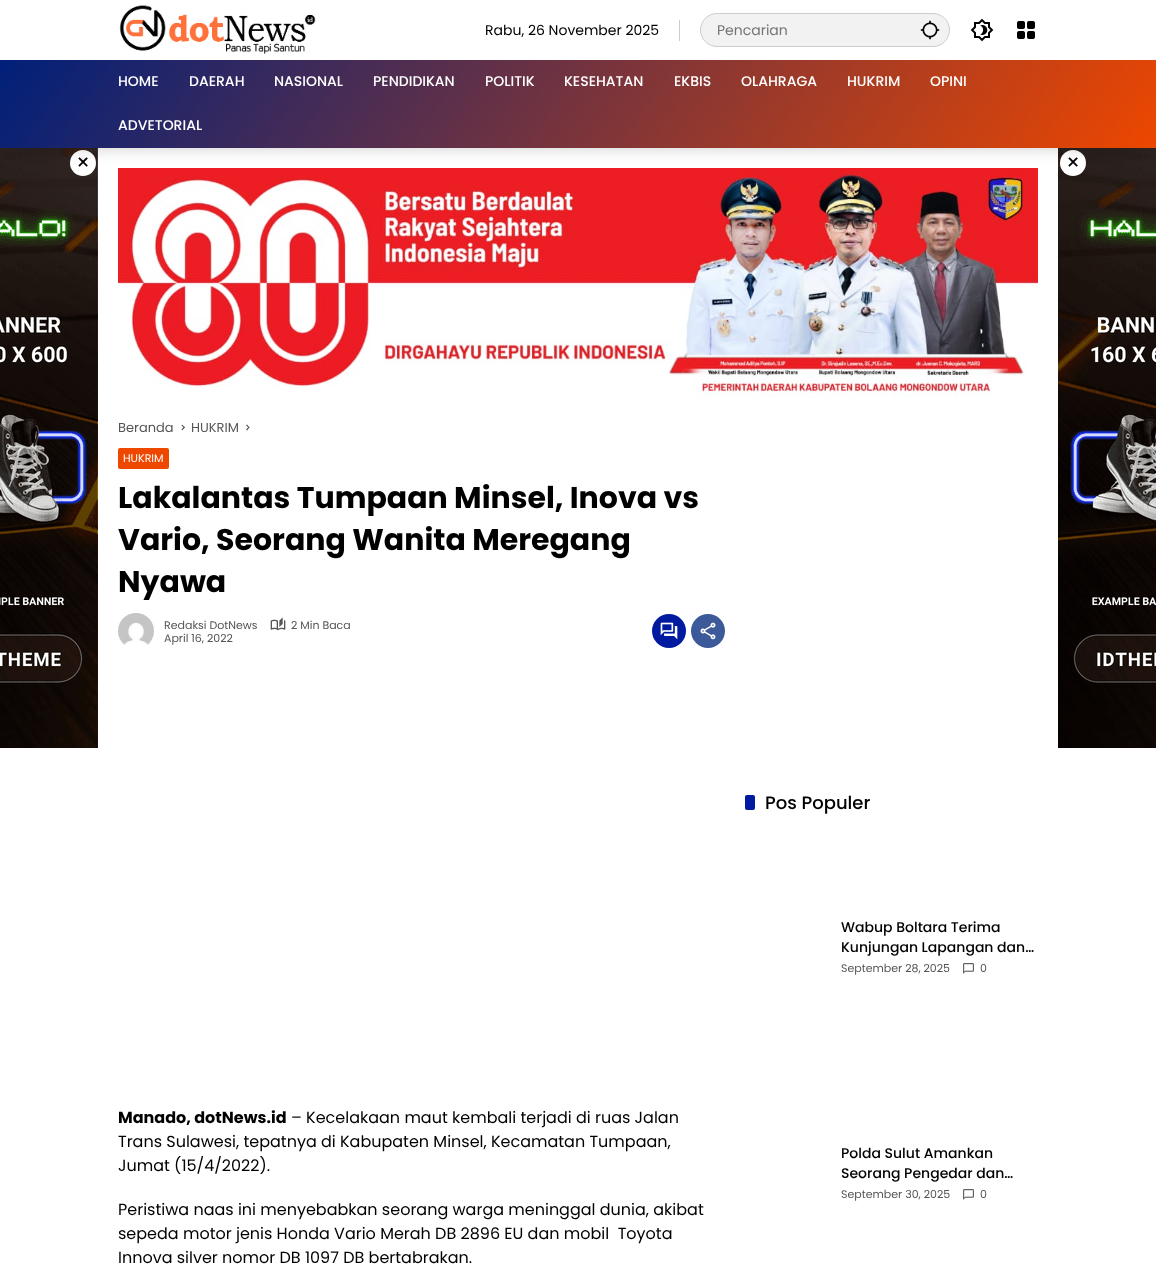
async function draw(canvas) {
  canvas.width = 1156
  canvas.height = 1278
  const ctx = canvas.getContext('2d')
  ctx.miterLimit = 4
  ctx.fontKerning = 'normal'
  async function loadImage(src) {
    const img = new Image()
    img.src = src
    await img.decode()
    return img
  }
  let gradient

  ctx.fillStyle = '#fff'
  ctx.fillRect(0, 0, 1156, 1278)
  ctx.drawImage(await loadImage('image0.png'), 119, 5, 197, 49)
  ctx.fillStyle = '#ccc'
  ctx.fillRect(679, 20, 1, 21)
  ctx.font = '14px Poppins'
  ctx.fillStyle = '#000'
  ctx.fillText('Rabu, 26 November 2025', 485, 35)
  ctx.fillStyle = '#f2f2f2'
  ctx.beginPath()
  ctx.roundRect(700.5, 13.5, 249, 33, 16.5)
  ctx.fill()
  ctx.strokeStyle = '#ccc'
  ctx.stroke()
  ctx.fillStyle = '#757575'
  ctx.fillText('Pencarian', 717, 35)
  ctx.drawImage(await loadImage('image1.png'), 920, 20, 20, 20)
  ctx.drawImage(await loadImage('image2.png'), 970, 18, 24, 24)
  ctx.drawImage(await loadImage('image3.png'), 1017, 21, 18, 18)
  ctx.drawImage(await loadImage('image4.png'), 0, 148, 98, 600)
  ctx.fillStyle = '#fff'
  ctx.beginPath()
  ctx.arc(83, 163, 13, 0, 2 * Math.PI)
  ctx.fill()
  ctx.drawImage(await loadImage('image5.png'), 1058, 148, 98, 600)
  ctx.beginPath()
  ctx.arc(1073, 163, 13, 0, 2 * Math.PI)
  ctx.fill()
  ctx.drawImage(await loadImage('image6.png'), 118, 168, 920, 230)
  ctx.fillStyle = '#00000033'
  ctx.filter = 'blur(7.5px)'
  ctx.beginPath()
  ctx.rect(15, 90, 1126, 58)
  ctx.fill()
  ctx.filter = 'none'
  gradient = ctx.createLinearGradient(987, 390, 169, -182)
  gradient.addColorStop(0, '#ed4700')
  gradient.addColorStop(1, '#00207a')
  ctx.fillStyle = gradient
  ctx.fillRect(0, 60, 1156, 88)
  ctx.font = '500 14px Poppins'
  ctx.fillStyle = '#fff'
  ctx.fillText('HOME', 118, 86)
  ctx.fillText('DAERAH', 189, 86)
  ctx.fillText('NASIONAL', 274, 86)
  ctx.fillText('PENDIDIKAN', 373, 86)
  ctx.fillText('POLITIK', 485, 86)
  ctx.fillText('KESEHATAN', 564, 86)
  ctx.fillText('EKBIS', 674, 86)
  ctx.fillText('OLAHRAGA', 741, 86)
  ctx.fillText('HUKRIM', 847, 86)
  ctx.fillText('OPINI', 930, 86)
  ctx.fillText('ADVETORIAL', 118, 130)
  ctx.font = '22px Poppins'
  ctx.fillStyle = '#000'
  ctx.fillText('×', 76, 170)
  ctx.fillText('×', 1066, 170)
  ctx.font = '13px Poppins'
  ctx.fillStyle = '#555'
  ctx.fillText('Beranda', 118, 432)
  ctx.beginPath()
  ctx.moveTo(181.5, 425.5)
  ctx.lineTo(182, 424.5)
  ctx.lineTo(185, 427.5)
  ctx.lineTo(184, 428)
  ctx.closePath()
  ctx.fill()
  ctx.beginPath()
  ctx.moveTo(181.5, 429.5)
  ctx.lineTo(184, 426.5)
  ctx.lineTo(185, 427.5)
  ctx.lineTo(182, 430.5)
  ctx.closePath()
  ctx.fill()
  ctx.fillText('HUKRIM', 191, 432)
  ctx.beginPath()
  ctx.moveTo(246, 425.5)
  ctx.lineTo(247, 424.5)
  ctx.lineTo(249.5, 427.5)
  ctx.lineTo(249, 428)
  ctx.closePath()
  ctx.fill()
  ctx.beginPath()
  ctx.moveTo(246, 429.5)
  ctx.lineTo(249, 426.5)
  ctx.lineTo(249.5, 427.5)
  ctx.lineTo(247, 430.5)
  ctx.closePath()
  ctx.fill()
  ctx.fillStyle = '#ed4700'
  ctx.beginPath()
  ctx.roundRect(118, 448, 51, 21, 2)
  ctx.fill()
  ctx.font = '11px Poppins'
  ctx.fillStyle = '#fff'
  ctx.fillText('HUKRIM', 123, 462)
  ctx.font = 'bold 30px Poppins'
  ctx.fillStyle = '#000'
  ctx.fillText('Lakalantas Tumpaan Minsel, Inova vs', 118, 508)
  ctx.fillText('Vario, Seorang Wanita Meregang', 118, 550)
  ctx.fillText('Nyawa', 118, 592)
  ctx.drawImage(await loadImage('image7.png'), 118, 613, 36, 32)
  ctx.font = '11px Poppins'
  ctx.fillStyle = '#555'
  ctx.fillText('Redaksi DotNews', 164, 629)
  ctx.drawImage(await loadImage('image8.png'), 270, 617, 16, 14)
  ctx.fillText('2 Min Baca', 291, 629)
  ctx.fillText('April 16, 2022', 164, 642)
  ctx.fillStyle = '#001aa0'
  ctx.beginPath()
  ctx.arc(669, 631, 17, 0, 2 * Math.PI)
  ctx.fill()
  ctx.drawImage(await loadImage('image9.png'), 660, 622, 18, 18)
  ctx.fillStyle = '#3c5a99'
  ctx.beginPath()
  ctx.arc(708, 631, 17, 0, 2 * Math.PI)
  ctx.fill()
  ctx.drawImage(await loadImage('image10.png'), 700, 622, 16, 18)
  ctx.font = 'bold 16px Poppins'
  ctx.fillStyle = '#000'
  ctx.fillText('Manado, dotNews.id', 118, 1123)
  ctx.font = '16px Poppins'
  ctx.fillText('– Kecelakaan maut kembali terjadi di ruas Jalan', 291, 1123)
  ctx.fillText('Trans Sulawesi, tepatnya di Kabupaten Minsel, Kecamatan Tumpaan,', 118, 1147)
  ctx.fillText('Jumat (15/4/2022).', 118, 1171)
  ctx.fillText('Peristiwa naas ini menyebabkan seorang warga meninggal dunia, akibat', 118, 1215)
  ctx.fillText('sepeda motor jenis Honda Vario Merah DB 2896 EU dan mobil  Toyota', 118, 1239)
  ctx.fillText('Innova silver nomor DB 1097 DB bertabrakan.', 118, 1263)
  ctx.fillStyle = '#001aa0'
  ctx.beginPath()
  ctx.roundRect(745, 795, 10, 15, 2)
  ctx.fill()
  ctx.font = '500 18px Poppins'
  ctx.fillStyle = '#000'
  ctx.fillText('Pos Populer', 765, 809)
  ctx.font = '500 14px Poppins'
  ctx.fillText('Wabup Boltara Terima', 841, 932)
  ctx.fillText('Kunjungan Lapangan dan…', 841, 952)
  ctx.font = '11px Poppins'
  ctx.fillStyle = '#555'
  ctx.fillText('September 28, 2025', 841, 972)
  ctx.drawImage(await loadImage('image11.png'), 963, 963, 11, 11)
  ctx.fillText('0', 980, 972)
  ctx.font = '500 14px Poppins'
  ctx.fillStyle = '#000'
  ctx.fillText('Polda Sulut Amankan', 841, 1158)
  ctx.fillText('Seorang Pengedar dan…', 841, 1178)
  ctx.font = '11px Poppins'
  ctx.fillStyle = '#555'
  ctx.fillText('September 30, 2025', 841, 1198)
  ctx.drawImage(await loadImage('image11.png'), 963, 1189, 11, 11)
  ctx.fillText('0', 980, 1198)
}

draw(document.querySelector('canvas'))
